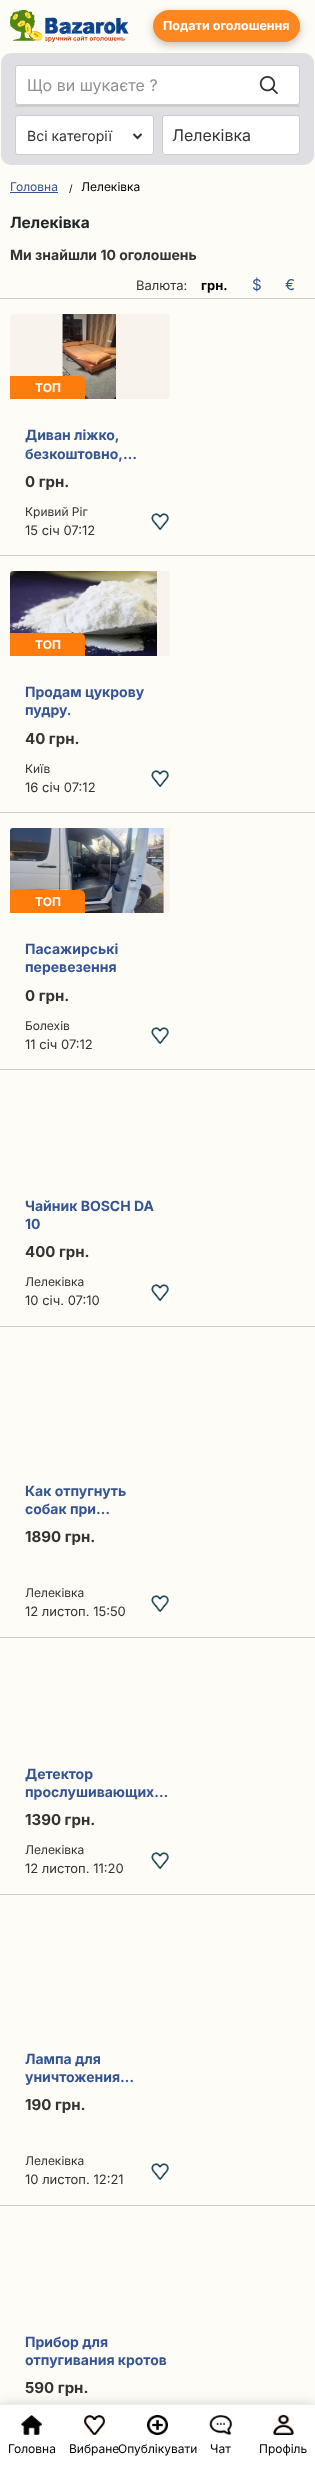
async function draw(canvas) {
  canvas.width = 315
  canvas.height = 2468
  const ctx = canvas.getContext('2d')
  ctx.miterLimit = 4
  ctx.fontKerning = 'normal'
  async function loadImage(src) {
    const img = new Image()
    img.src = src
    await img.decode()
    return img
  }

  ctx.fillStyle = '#fefcf7'
  ctx.fillRect(0, 0, 315, 2468)
  ctx.drawImage(await loadImage('image0.png'), 10, 10, 119, 32)
  ctx.fillStyle = '#dfdee3'
  ctx.beginPath()
  ctx.roundRect(1, 53, 313, 112, 10)
  ctx.fill()
  ctx.fillStyle = '#0000003d'
  ctx.filter = 'blur(4px)'
  ctx.beginPath()
  ctx.roundRect(153, 13, 147, 32, 16)
  ctx.fill()
  ctx.filter = 'none'
  ctx.fillStyle = '#fd8821'
  ctx.beginPath()
  ctx.roundRect(153, 10, 147, 32, 16)
  ctx.fill()
  ctx.font = 'bold 12.5px Inter'
  ctx.fillStyle = '#fff'
  ctx.fillText('Подати оголошення', 163, 30)
  ctx.beginPath()
  ctx.roundRect(15.5, 65.5, 284, 39, 2.5)
  ctx.fill()
  ctx.strokeStyle = '#ccc'
  ctx.stroke()
  ctx.font = '16px Inter'
  ctx.fillStyle = '#919191'
  ctx.fillText('Що ви шукаєте ?', 27, 91)
  ctx.drawImage(await loadImage('image1.png'), 259, 76, 19, 18)
  ctx.fillStyle = '#ccc'
  ctx.beginPath()
  ctx.roundRect(15, 105, 285, 2, 1)
  ctx.fill()
  ctx.fillStyle = '#fff'
  ctx.beginPath()
  ctx.roundRect(15.5, 115.5, 138, 39, 2.5)
  ctx.fill()
  ctx.stroke()
  ctx.beginPath()
  ctx.moveTo(133.5, 134)
  ctx.lineTo(137.5, 138)
  ctx.lineTo(141.5, 134)
  ctx.strokeStyle = '#333'
  ctx.lineWidth = 2
  ctx.stroke()
  ctx.font = '14px Inter'
  ctx.fillStyle = '#333'
  ctx.fillText('Всі категорії', 27, 141)
  ctx.fillStyle = '#fff'
  ctx.beginPath()
  ctx.roundRect(162.5, 115.5, 137, 39, 2.5)
  ctx.fill()
  ctx.strokeStyle = '#ccc'
  ctx.lineWidth = 1
  ctx.stroke()
  ctx.font = '16px Inter'
  ctx.fillStyle = '#333'
  ctx.fillText('Лелеківка', 172, 141)
  ctx.font = '12px Inter'
  ctx.fillStyle = '#345492'
  ctx.fillText('Головна', 10, 191)
  ctx.fillRect(10, 192, 48, 1)
  ctx.font = '10px Inter'
  ctx.fillStyle = '#000'
  ctx.fillText('/', 69, 192)
  ctx.font = '12px Inter'
  ctx.fillText('Лелеківка', 81, 191)
  ctx.font = 'bold 15.5px Inter'
  ctx.fillStyle = '#212529'
  ctx.fillText('Лелеківка', 10, 228)
  ctx.font = 'bold 14px Inter'
  ctx.fillStyle = '#333'
  ctx.fillText('Ми знайшли 10 оголошень', 10, 260)
  ctx.fillStyle = '#ccc'
  ctx.fillRect(0, 298, 315, 1)
  ctx.font = '13px Inter'
  ctx.fillStyle = '#333'
  ctx.fillText('Валюта:', 136, 290)
  ctx.font = 'bold 13px Inter'
  ctx.fillStyle = '#000'
  ctx.fillText('грн.', 201, 290)
  ctx.font = '15px Inter'
  ctx.fillStyle = '#345492'
  ctx.fillText('$', 252, 290)
  ctx.fillText('€', 285, 290)
  ctx.fillStyle = '#ccc'
  ctx.fillRect(0, 555, 315, 1)
  ctx.drawImage(await loadImage('image2.png'), 10, 314, 160, 85)
  ctx.fillStyle = '#fd7c0b'
  ctx.beginPath()
  ctx.roundRect(10, 376, 75, 23, [0, 5, 0, 0])
  ctx.fill()
  ctx.font = 'bold 12px Inter'
  ctx.fillStyle = '#fff'
  ctx.fillText('ТОП', 35, 392)
  ctx.font = 'bold 14px Inter'
  ctx.fillStyle = '#345492'
  ctx.fillText('Диван ліжко,', 25, 440)
  ctx.fillText('безкоштовно,…', 25, 459)
  ctx.font = 'bold 15px Inter'
  ctx.fillStyle = '#333'
  ctx.fillText('0 грн.', 25, 487)
  ctx.font = '12px Inter'
  ctx.fillText('Кривий Ріг', 25, 516)
  ctx.font = '13px Inter'
  ctx.fillText('15 січ 07:12', 25, 535)
  ctx.drawImage(await loadImage('image3.png'), 151, 513, 18, 17)
  ctx.fillStyle = '#ccc'
  ctx.fillRect(0, 812, 315, 1)
  ctx.drawImage(await loadImage('image4.png'), 10, 571, 160, 85)
  ctx.fillStyle = '#fd7c0b'
  ctx.beginPath()
  ctx.roundRect(10, 633, 75, 23, [0, 5, 0, 0])
  ctx.fill()
  ctx.font = 'bold 12px Inter'
  ctx.fillStyle = '#fff'
  ctx.fillText('ТОП', 35, 649)
  ctx.font = 'bold 14px Inter'
  ctx.fillStyle = '#345492'
  ctx.fillText('Продам цукрову', 25, 697)
  ctx.fillText('пудру.', 25, 715)
  ctx.font = 'bold 15px Inter'
  ctx.fillStyle = '#333'
  ctx.fillText('40 грн.', 25, 744)
  ctx.font = '12px Inter'
  ctx.fillText('Київ', 25, 773)
  ctx.font = '13px Inter'
  ctx.fillText('16 січ 07:12', 25, 792)
  ctx.drawImage(await loadImage('image5.png'), 151, 770, 18, 17)
  ctx.fillStyle = '#ccc'
  ctx.fillRect(0, 1069, 315, 1)
  ctx.drawImage(await loadImage('image6.png'), 10, 828, 160, 85)
  ctx.fillStyle = '#fd7c0b'
  ctx.beginPath()
  ctx.roundRect(10, 890, 75, 23, [0, 5, 0, 0])
  ctx.fill()
  ctx.font = 'bold 12px Inter'
  ctx.fillStyle = '#fff'
  ctx.fillText('ТОП', 35, 906)
  ctx.font = 'bold 14px Inter'
  ctx.fillStyle = '#345492'
  ctx.fillText('Пасажирські', 25, 954)
  ctx.fillText('перевезення', 25, 972)
  ctx.font = 'bold 15px Inter'
  ctx.fillStyle = '#333'
  ctx.fillText('0 грн.', 25, 1001)
  ctx.font = '12px Inter'
  ctx.fillText('Болехів', 25, 1030)
  ctx.font = '13px Inter'
  ctx.fillText('11 січ 07:12', 25, 1049)
  ctx.drawImage(await loadImage('image5.png'), 151, 1027, 18, 17)
  ctx.fillStyle = '#ccc'
  ctx.fillRect(0, 1326, 315, 1)
  ctx.font = 'bold 14px Inter'
  ctx.fillStyle = '#345492'
  ctx.fillText('Чайник BOSCH DA', 25, 1211)
  ctx.fillText('10', 25, 1229)
  ctx.font = 'bold 15px Inter'
  ctx.fillStyle = '#333'
  ctx.fillText('400 грн.', 25, 1257)
  ctx.font = '12px Inter'
  ctx.fillText('Лелеківка', 25, 1286)
  ctx.font = '13px Inter'
  ctx.fillText('10 січ. 07:10', 25, 1305)
  ctx.drawImage(await loadImage('image5.png'), 151, 1284, 18, 17)
  ctx.fillStyle = '#ccc'
  ctx.fillRect(0, 1637, 315, 1)
  ctx.font = 'bold 14px Inter'
  ctx.fillStyle = '#345492'
  ctx.fillText('Как отпугнуть', 25, 1496)
  ctx.fillText('собак при…', 25, 1514)
  ctx.font = 'bold 15px Inter'
  ctx.fillStyle = '#333'
  ctx.fillText('1890 грн.', 25, 1542)
  ctx.font = '12px Inter'
  ctx.fillText('Лелеківка', 25, 1597)
  ctx.font = '13px Inter'
  ctx.fillText('12 листоп. 15:50', 25, 1616)
  ctx.drawImage(await loadImage('image5.png'), 151, 1595, 18, 17)
  ctx.fillStyle = '#ccc'
  ctx.fillRect(0, 1894, 315, 1)
  ctx.font = 'bold 14px Inter'
  ctx.fillStyle = '#345492'
  ctx.fillText('Детектор', 25, 1779)
  ctx.fillText('прослушивающих…', 25, 1797)
  ctx.font = 'bold 15px Inter'
  ctx.fillStyle = '#333'
  ctx.fillText('1390 грн.', 25, 1825)
  ctx.font = '12px Inter'
  ctx.fillText('Лелеківка', 25, 1854)
  ctx.font = '13px Inter'
  ctx.fillText('12 листоп. 11:20', 25, 1873)
  ctx.drawImage(await loadImage('image5.png'), 151, 1852, 18, 17)
  ctx.fillStyle = '#ccc'
  ctx.fillRect(0, 2205, 315, 1)
  ctx.font = 'bold 14px Inter'
  ctx.fillStyle = '#345492'
  ctx.fillText('Лампа для', 25, 2064)
  ctx.fillText('уничтожения…', 25, 2082)
  ctx.font = 'bold 15px Inter'
  ctx.fillStyle = '#333'
  ctx.fillText('190 грн.', 25, 2110)
  ctx.font = '12px Inter'
  ctx.fillText('Лелеківка', 25, 2165)
  ctx.font = '13px Inter'
  ctx.fillText('10 листоп. 12:21', 25, 2184)
  ctx.drawImage(await loadImage('image3.png'), 151, 2163, 18, 17)
  ctx.font = 'bold 14px Inter'
  ctx.fillStyle = '#345492'
  ctx.fillText('Прибор для', 25, 2347)
  ctx.fillText('отпугивания кротов', 25, 2365)
  ctx.font = 'bold 15px Inter'
  ctx.fillStyle = '#333'
  ctx.fillText('590 грн.', 25, 2393)
  ctx.fillStyle = '#00000059'
  ctx.filter = 'blur(7.5px)'
  ctx.beginPath()
  ctx.rect(0, 2409, 315, 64)
  ctx.fill()
  ctx.filter = 'none'
  ctx.fillStyle = '#fff'
  ctx.fillRect(0, 2405, 315, 63)
  ctx.fillStyle = '#eee'
  ctx.fillRect(0, 2404, 315, 1)
  ctx.drawImage(await loadImage('image7.png'), 21, 2415, 21, 20)
  ctx.font = '12px Inter'
  ctx.fillStyle = '#000'
  ctx.fillText('Головна', 8, 2453)
  ctx.drawImage(await loadImage('image8.png'), 84, 2415, 21, 20)
  ctx.fillText('Вибране', 69, 2453)
  ctx.drawImage(await loadImage('image9.png'), 147, 2415, 21, 20)
  ctx.fillText('Опублікувати', 118, 2453)
  ctx.drawImage(await loadImage('image10.png'), 209, 2415, 24, 20)
  ctx.fillText('Чат', 210, 2453)
  ctx.drawImage(await loadImage('image11.png'), 273, 2415, 21, 20)
  ctx.fillText('Профіль', 259, 2453)
}

draw(document.querySelector('canvas'))
